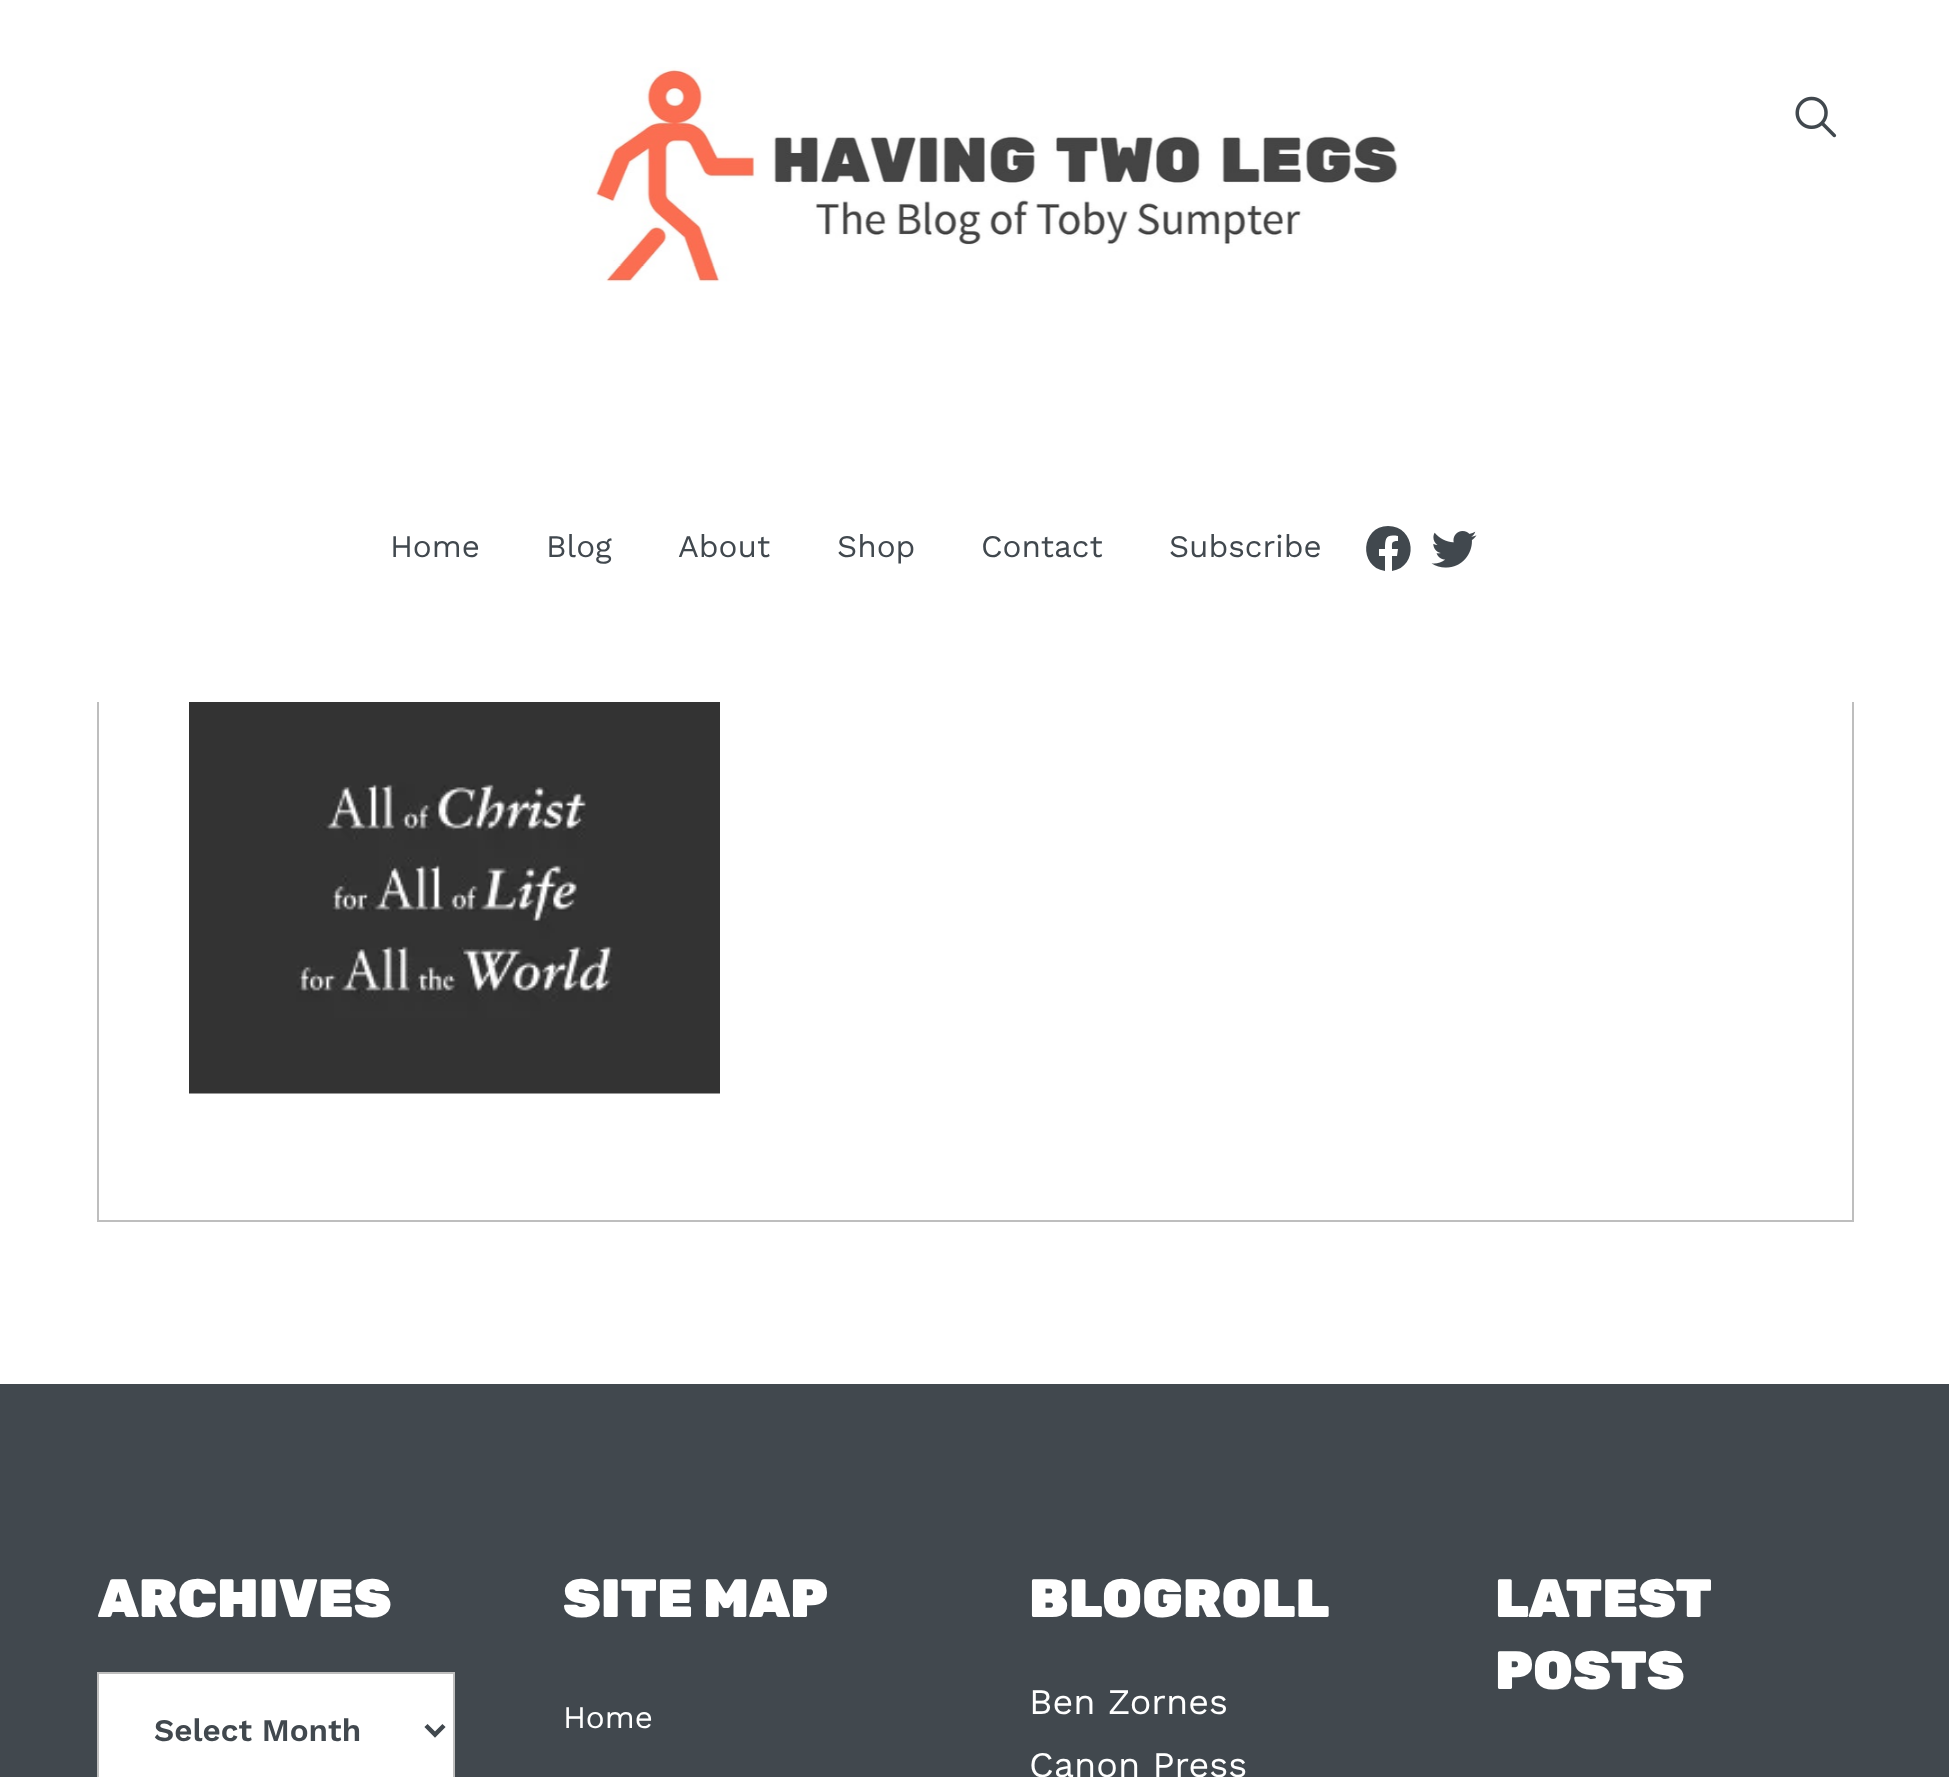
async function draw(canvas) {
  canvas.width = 1949
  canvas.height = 1777
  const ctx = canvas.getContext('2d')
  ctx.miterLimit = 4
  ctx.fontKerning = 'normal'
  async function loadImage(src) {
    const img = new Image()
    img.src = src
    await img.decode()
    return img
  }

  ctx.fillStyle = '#fff'
  ctx.fillRect(0, 0, 1949, 1777)
  ctx.strokeStyle = '#bebebe'
  ctx.lineWidth = 2
  ctx.strokeRect(98, 604, 1755, 617)
  ctx.fillRect(97, 603, 1757, 99)
  ctx.drawImage(await loadImage('image0.png'), 589, 67, 809, 215)
  ctx.drawImage(await loadImage('image1.png'), 1795, 96, 42, 42)
  ctx.font = '31.5px Work Sans'
  ctx.fillStyle = '#41484e'
  ctx.fillText('Home', 390, 557)
  ctx.fillText('Blog', 546, 557)
  ctx.fillText('About', 678, 557)
  ctx.fillText('Shop', 837, 557)
  ctx.fillText('Contact', 981, 557)
  ctx.fillText('Subscribe', 1169, 557)
  ctx.beginPath()
  ctx.moveTo(1388, 526)
  ctx.bezierCurveTo(1361, 526, 1358, 567, 1385, 571)
  ctx.lineTo(1385, 556)
  ctx.lineTo(1379, 556)
  ctx.lineTo(1379, 549)
  ctx.lineTo(1385, 549)
  ctx.bezierCurveTo(1385, 538, 1386, 534, 1398, 536)
  ctx.lineTo(1398, 541)
  ctx.bezierCurveTo(1391, 541, 1392, 543, 1392, 549)
  ctx.lineTo(1398, 549)
  ctx.lineTo(1397, 556)
  ctx.lineTo(1392, 556)
  ctx.lineTo(1392, 571)
  ctx.bezierCurveTo(1419, 567, 1416, 526, 1388, 526)
  ctx.closePath()
  ctx.fill()
  ctx.drawImage(await loadImage('image2.png'), 1431, 531, 46, 37)
  ctx.drawImage(await loadImage('image3.png'), 189, 702, 531, 392)
  ctx.fillRect(0, 1384, 1949, 393)
  ctx.font = '900 54px Rubik'
  ctx.fillStyle = '#fff'
  ctx.fillText('ARCHIVES', 98, 1617)
  ctx.beginPath()
  ctx.rect(98, 1673, 356, 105)
  ctx.fill()
  ctx.stroke()
  ctx.beginPath()
  ctx.moveTo(426, 1725.5)
  ctx.lineTo(435, 1734.5)
  ctx.lineTo(444, 1725.5)
  ctx.strokeStyle = '#41484e'
  ctx.lineWidth = 4.5
  ctx.stroke()
  ctx.font = '600 31.5px Work Sans'
  ctx.fillStyle = '#41484e'
  ctx.fillText('Select Month', 154, 1741)
  ctx.font = '900 54px Rubik'
  ctx.fillStyle = '#fff'
  ctx.fillText('SITE MAP', 563, 1617)
  ctx.font = '31.5px Work Sans'
  ctx.fillText('Home', 563, 1728)
  ctx.font = '900 54px Rubik'
  ctx.fillText('BLOGROLL', 1029, 1617)
  ctx.font = '36px Work Sans'
  ctx.fillText('Ben Zornes', 1029, 1714)
  ctx.fillText('Canon Press', 1029, 1777)
  ctx.font = '900 54px Rubik'
  ctx.fillText('LATEST', 1495, 1617)
  ctx.fillText('POSTS', 1495, 1689)
}

draw(document.querySelector('canvas'))
